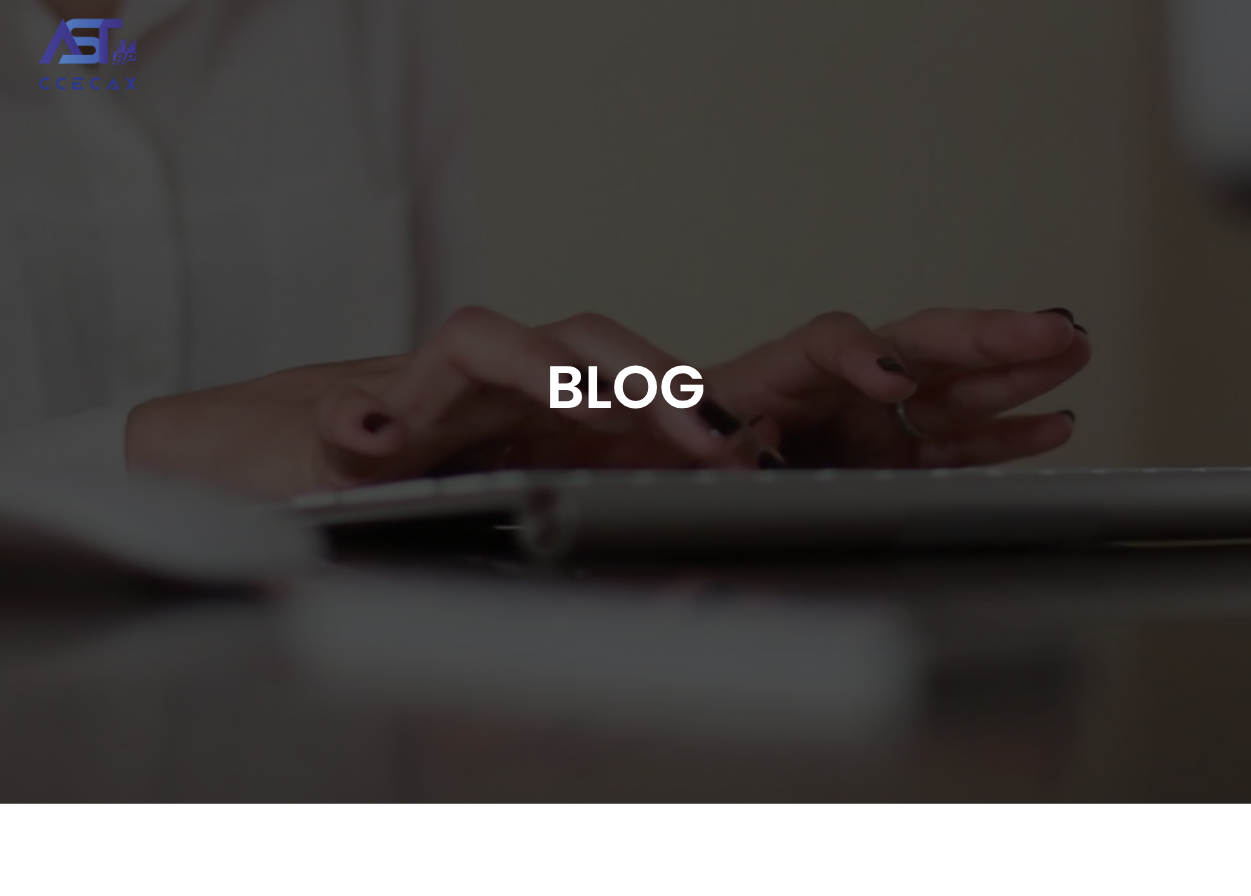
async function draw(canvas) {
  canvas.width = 1251
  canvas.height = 896
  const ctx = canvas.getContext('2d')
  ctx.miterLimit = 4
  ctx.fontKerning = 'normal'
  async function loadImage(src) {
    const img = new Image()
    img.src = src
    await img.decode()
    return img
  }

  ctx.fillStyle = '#fff'
  ctx.fillRect(0, 0, 1251, 896)
  ctx.drawImage(await loadImage('image1.png'), 0, 0, 1251, 804)
  ctx.drawImage(await loadImage('image0.png'), 38, 18, 99, 72)
  ctx.font = '600 60px Poppins'
  ctx.fillText('BLOG', 546, 408)
}

draw(document.querySelector('canvas'))
